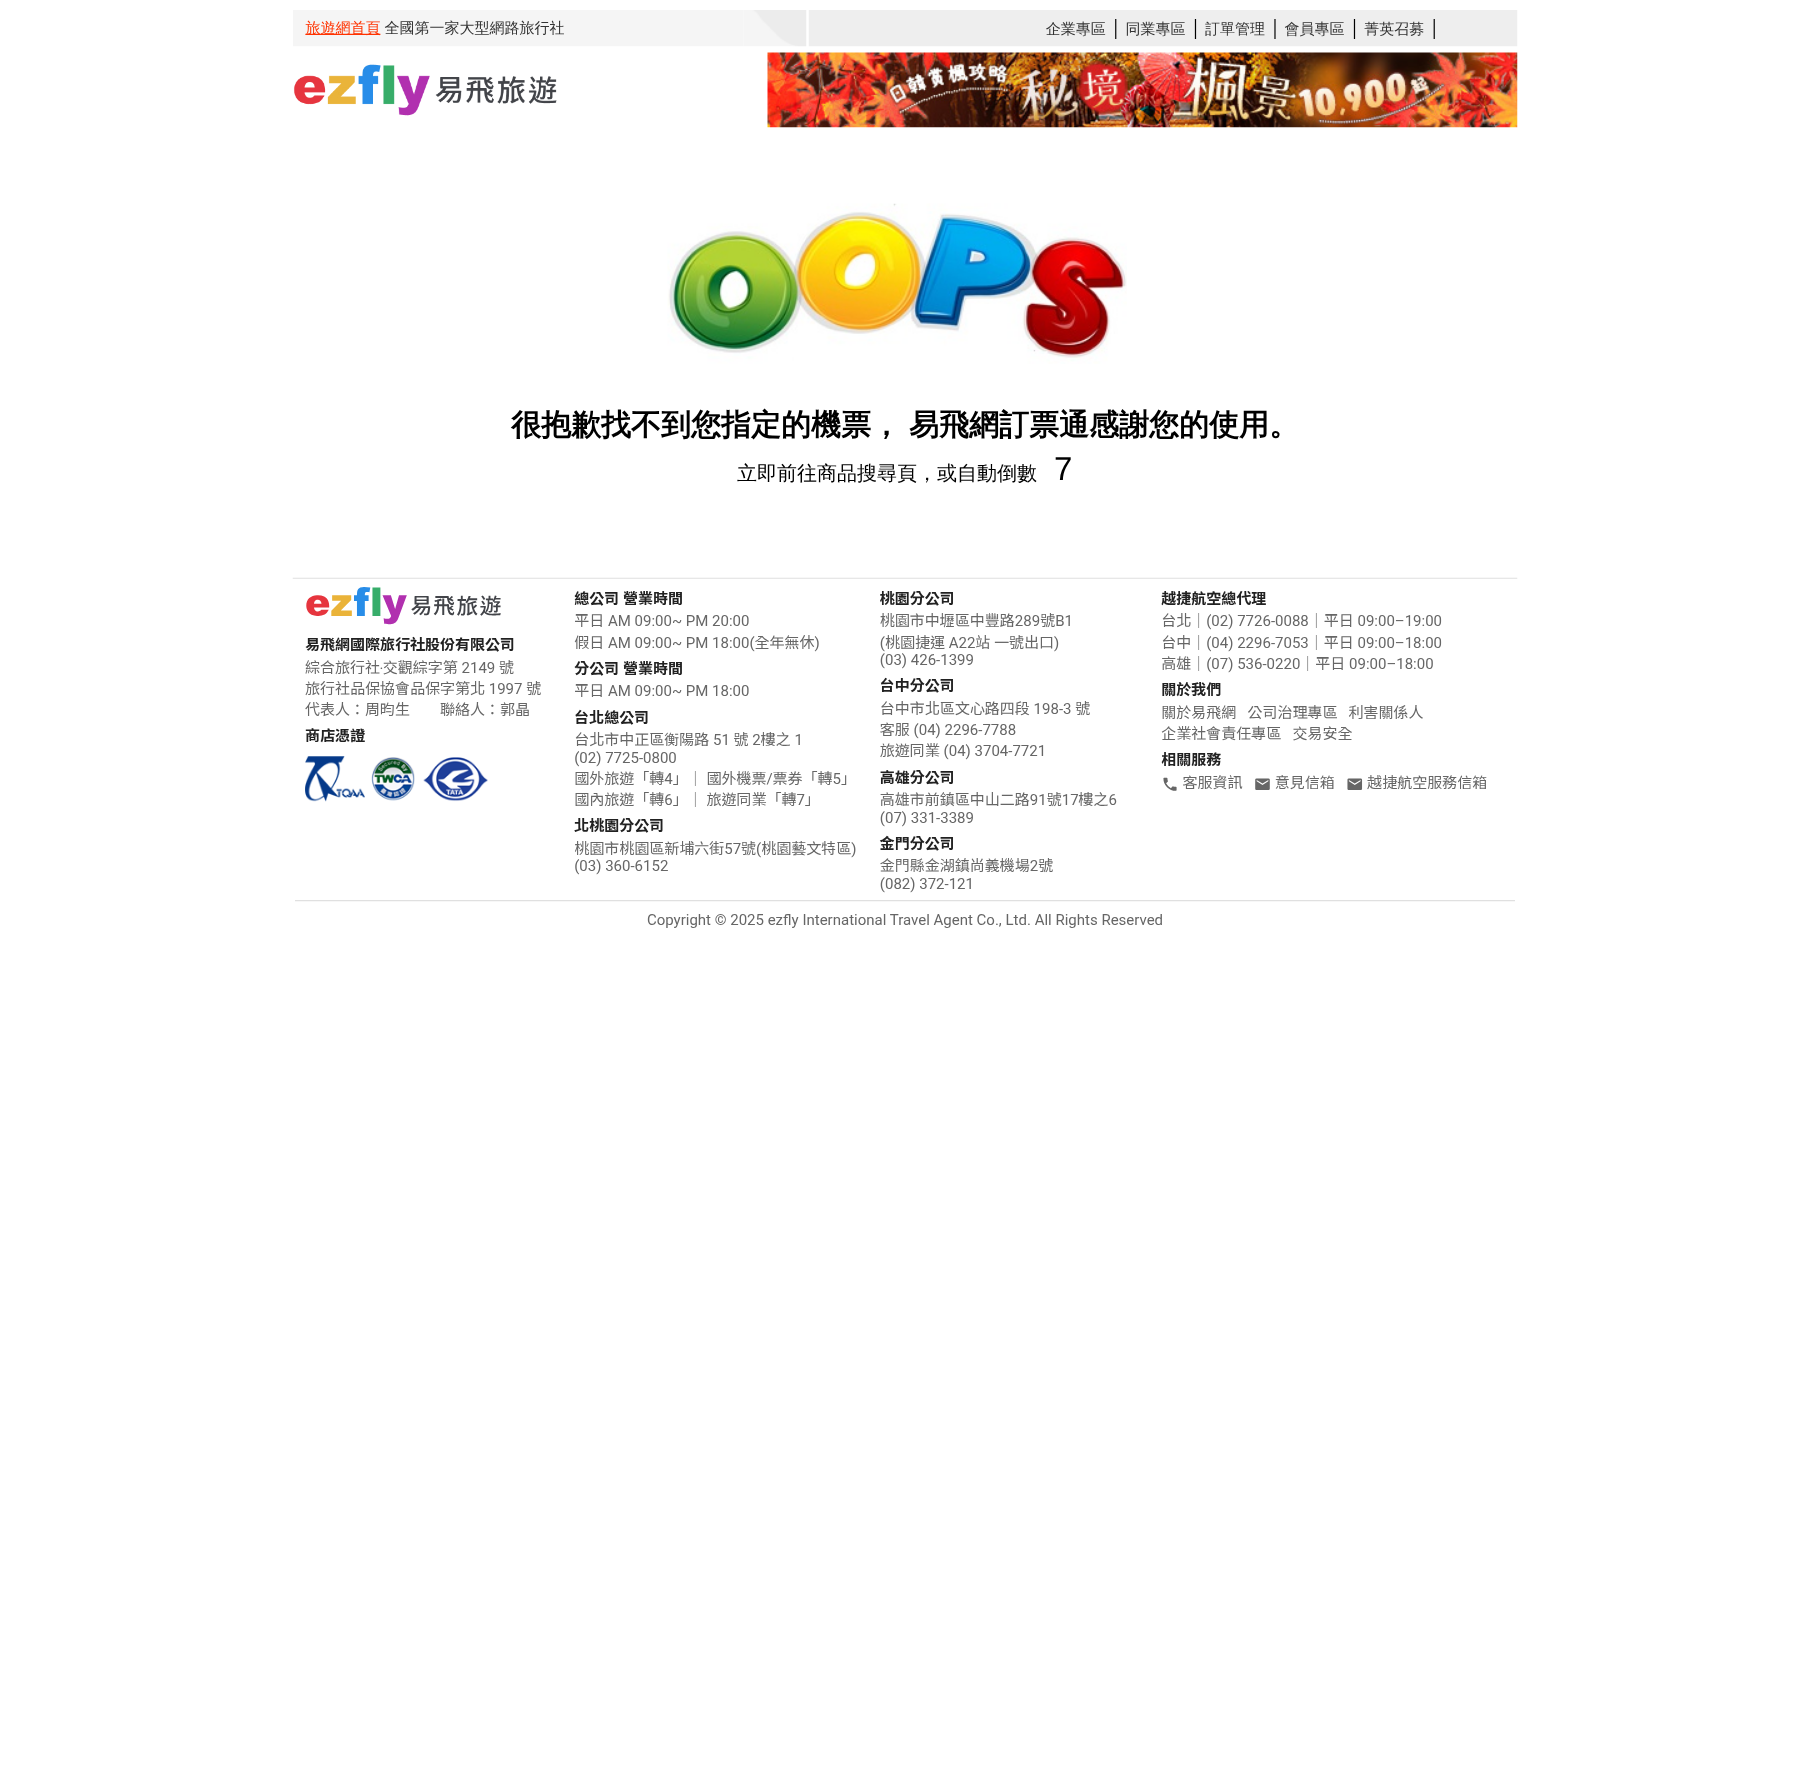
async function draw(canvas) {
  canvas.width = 1809
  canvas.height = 1780
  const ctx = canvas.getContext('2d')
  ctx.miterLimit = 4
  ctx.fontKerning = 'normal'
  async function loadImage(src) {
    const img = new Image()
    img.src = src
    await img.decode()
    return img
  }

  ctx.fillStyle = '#fff'
  ctx.fillRect(0, 0, 1809, 1780)
  ctx.drawImage(await loadImage('image0.png'), 293, 10, 1225, 118)
  ctx.drawImage(await loadImage('image1.png'), 667, 203, 460, 161)
  ctx.wordSpacing = '-1px'
  ctx.font = 'bold 30px WenQuanYi Zen Hei'
  ctx.fillStyle = '#000'
  ctx.fillText('很抱歉找不到您指定的機票， 易飛網訂票通感謝您的使用。', 511, 435)
  ctx.wordSpacing = '0px'
  ctx.font = '500 20px WenQuanYi Zen Hei'
  ctx.fillText('立即前往商品搜尋頁，或自動倒數', 737, 480)
  ctx.font = '33px Liberation Sans'
  ctx.fillText('7', 1054, 480)
  ctx.drawImage(await loadImage('image2.png'), 292, 577, 1226, 351)
}

draw(document.querySelector('canvas'))
